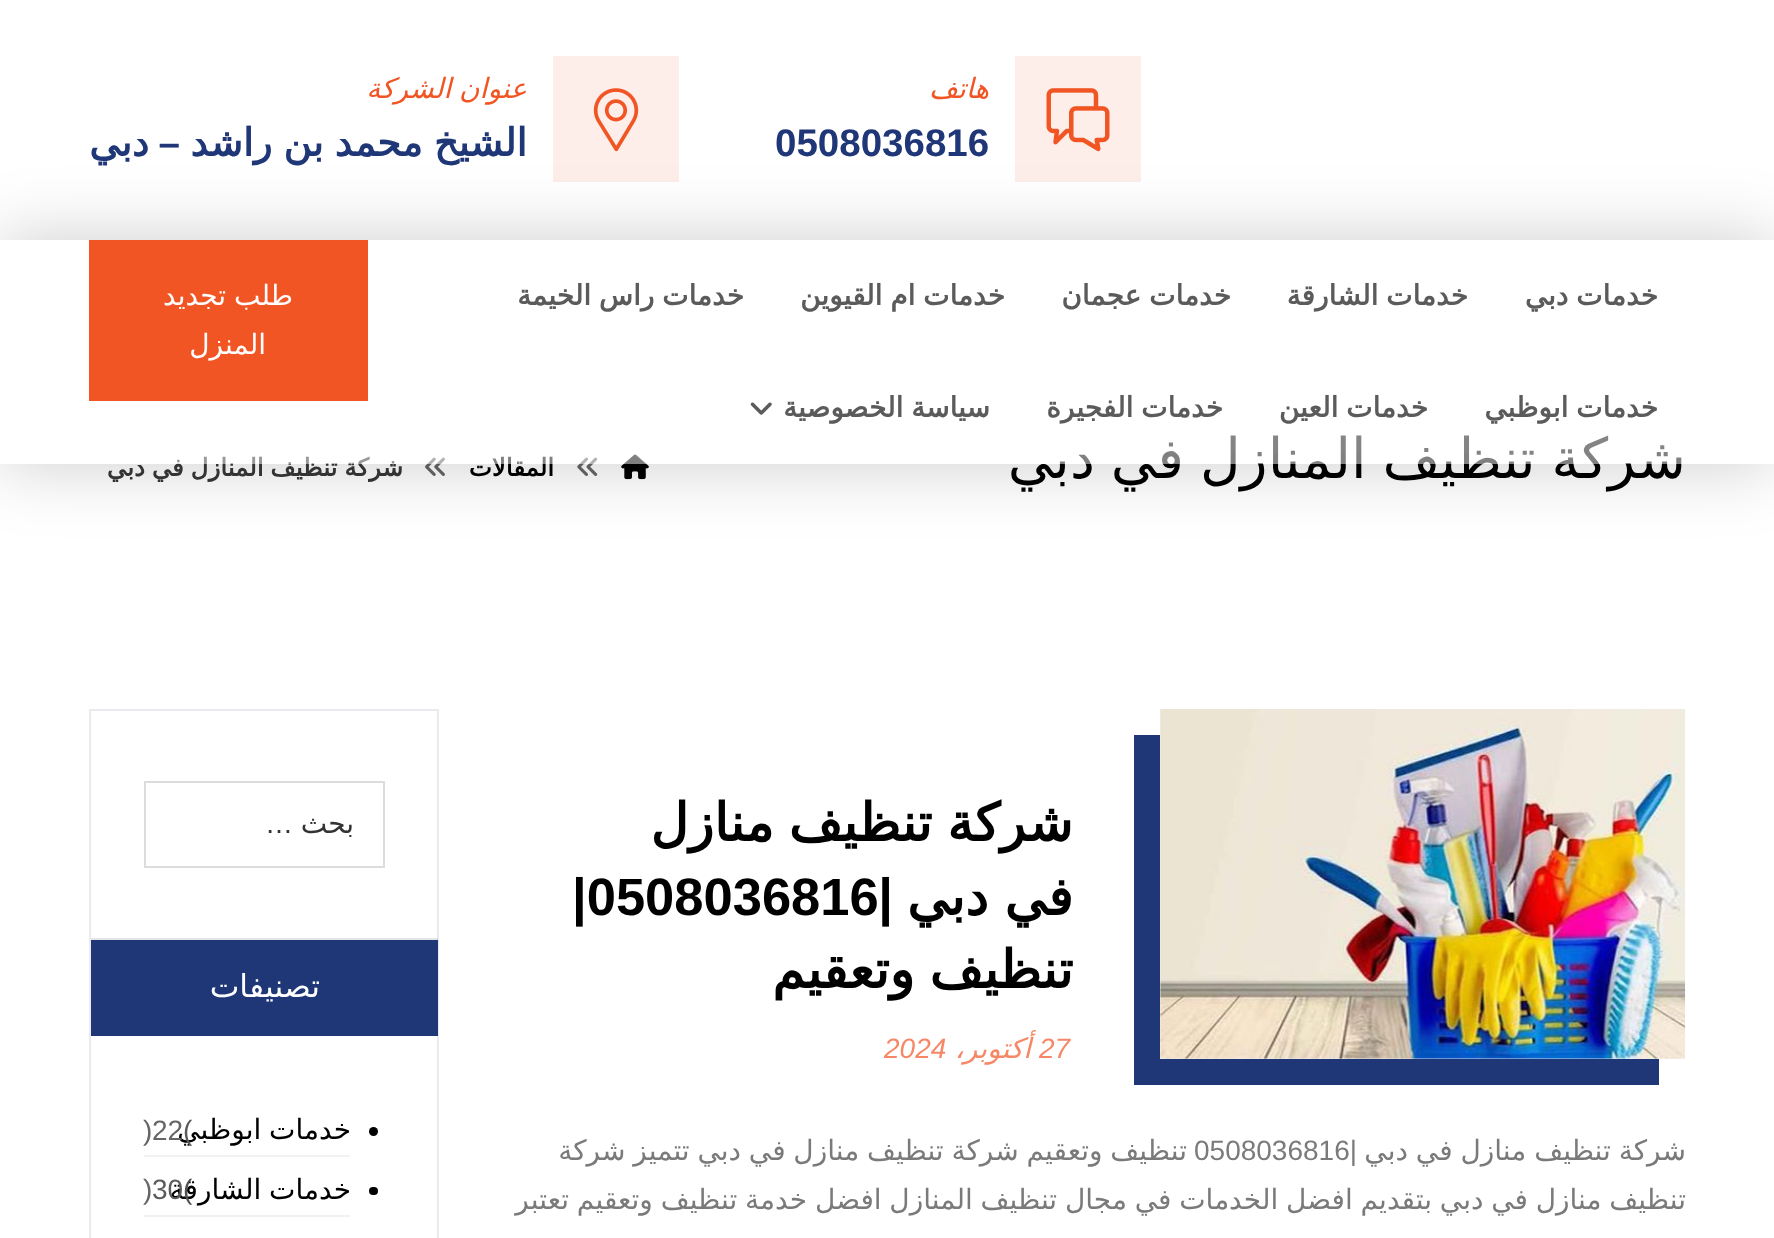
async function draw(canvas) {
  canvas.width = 1774
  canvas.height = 1238
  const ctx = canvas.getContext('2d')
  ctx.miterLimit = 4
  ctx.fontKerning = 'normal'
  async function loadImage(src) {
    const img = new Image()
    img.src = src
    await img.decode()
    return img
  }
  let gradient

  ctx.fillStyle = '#fff'
  ctx.fillRect(0, 0, 1774, 1238)
  ctx.wordSpacing = '-2px'
  ctx.direction = 'rtl'
  ctx.font = '56px DejaVu Sans'
  ctx.fillStyle = '#000'
  ctx.fillText('شركة تنظيف المنازل في دبي', 1686, 478)
  gradient = ctx.createLinearGradient(887, 464, 887, 0)
  gradient.addColorStop(0, '#ffffff03')
  gradient.addColorStop(1, '#ffffff8a')
  ctx.fillStyle = gradient
  ctx.fillRect(1168, 435, 509, 19)
  ctx.fillStyle = '#feeee9'
  ctx.fillRect(1015, 56, 126, 126)
  ctx.drawImage(await loadImage('image0.png'), 1046, 88, 64, 64)
  ctx.wordSpacing = '0px'
  ctx.font = 'italic 28px DejaVu Sans'
  ctx.fillStyle = '#f15524'
  ctx.fillText('هاتف', 989, 98)
  ctx.direction = 'ltr'
  ctx.font = 'bold 38.5px Liberation Sans'
  ctx.fillStyle = '#1f3777'
  ctx.fillText('0508036816', 775, 156)
  ctx.fillStyle = '#feeee9'
  ctx.fillRect(553, 56, 126, 126)
  ctx.drawImage(await loadImage('image1.png'), 593, 88, 46, 64)
  ctx.wordSpacing = '-1.1px'
  ctx.direction = 'rtl'
  ctx.font = 'italic 28px DejaVu Sans'
  ctx.fillStyle = '#f15524'
  ctx.fillText('عنوان الشركة', 527, 98)
  ctx.wordSpacing = '-1px'
  ctx.font = 'bold 38.5px DejaVu Sans'
  ctx.fillStyle = '#1f3777'
  ctx.fillText('الشيخ محمد بن راشد', 527, 156)
  ctx.wordSpacing = '0px'
  ctx.font = 'bold 38.5px Liberation Sans'
  ctx.fillText('–', 180, 156)
  ctx.font = 'bold 38.5px DejaVu Sans'
  ctx.fillText('دبي', 149, 156)
  ctx.drawImage(await loadImage('image3.png'), 621, 454, 28, 26)
  ctx.drawImage(await loadImage('image4.png'), 577, 457, 21, 19)
  ctx.drawImage(await loadImage('image5.png'), 425, 457, 20, 19)
  ctx.save()
  ctx.beginPath()
  ctx.moveTo(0, 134)
  ctx.lineTo(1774, 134)
  ctx.lineTo(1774, 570)
  ctx.lineTo(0, 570)
  ctx.closePath()
  ctx.moveTo(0, 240)
  ctx.lineTo(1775, 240)
  ctx.lineTo(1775, 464)
  ctx.lineTo(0, 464)
  ctx.closePath()
  ctx.clip('evenodd')
  ctx.fillStyle = '#00000033'
  ctx.filter = 'blur(35px)'
  ctx.beginPath()
  ctx.rect(0, 240, 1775, 224)
  ctx.fill()
  ctx.filter = 'none'
  ctx.restore()
  ctx.font = 'bold 24.5px DejaVu Sans'
  ctx.fillStyle = '#000'
  ctx.fillText('المقالات', 554, 476)
  ctx.wordSpacing = '-1px'
  ctx.fillStyle = '#333'
  ctx.fillText('شركة تنظيف المنازل في دبي', 403, 476)
  ctx.fillStyle = '#ffffff80'
  ctx.fillRect(29, 435, 1717, 29)
  ctx.wordSpacing = '-1.1px'
  ctx.font = 'bold 28px DejaVu Sans'
  ctx.fillStyle = '#5b5b5b'
  ctx.fillText('خدمات دبي', 1658, 305)
  ctx.fillText('خدمات الشارقة', 1468, 305)
  ctx.fillText('خدمات عجمان', 1231, 305)
  ctx.fillText('خدمات ام القيوين', 1005, 305)
  ctx.fillText('خدمات راس الخيمة', 744, 305)
  ctx.fillText('خدمات ابوظبي', 1658, 417)
  ctx.fillText('خدمات العين', 1428, 417)
  ctx.fillText('خدمات الفجيرة', 1223, 417)
  ctx.fillText('سياسة الخصوصية', 990, 417)
  ctx.drawImage(await loadImage('image2.png'), 750, 402, 22, 13)
  ctx.fillStyle = '#f15524'
  ctx.fillRect(89, 240, 279, 161)
  ctx.font = '28px DejaVu Sans'
  ctx.fillStyle = '#fff'
  ctx.fillText('طلب تجديد', 293, 305)
  ctx.wordSpacing = '0px'
  ctx.fillText('المنزل', 266, 354)
  ctx.fillStyle = '#1f3777'
  ctx.beginPath()
  ctx.moveTo(1134, 735)
  ctx.lineTo(1134, 1085)
  ctx.lineTo(1659, 1085)
  ctx.lineTo(1659, 1059)
  ctx.lineTo(1160, 1059)
  ctx.lineTo(1160, 735)
  ctx.closePath()
  ctx.fill()
  ctx.fillStyle = '#eee'
  ctx.fillRect(1160, 709, 525, 350)
  ctx.drawImage(await loadImage('image6.png'), 1160, 709, 526, 350)
  ctx.wordSpacing = '-2px'
  ctx.font = 'bold 52.5px DejaVu Sans'
  ctx.fillStyle = '#000'
  ctx.fillText('شركة تنظيف منازل', 1073, 841)
  ctx.wordSpacing = '-1px'
  ctx.fillText('في دبي', 1073, 915)
  ctx.wordSpacing = '0px'
  ctx.font = 'bold 52.5px Liberation Sans'
  ctx.fillText('|', 893, 915)
  ctx.direction = 'ltr'
  ctx.fillText('|0508036816', 572, 915)
  ctx.wordSpacing = '-2px'
  ctx.direction = 'rtl'
  ctx.font = 'bold 52.5px DejaVu Sans'
  ctx.fillText('تنظيف وتعقيم', 1073, 988)
  ctx.wordSpacing = '0px'
  ctx.direction = 'ltr'
  ctx.font = 'italic 28px Liberation Sans'
  ctx.fillStyle = '#f58866'
  ctx.fillText('27', 1039, 1058)
  ctx.direction = 'rtl'
  ctx.font = 'italic 28px DejaVu Sans'
  ctx.fillText('أكتوبر،', 1031, 1058)
  ctx.direction = 'ltr'
  ctx.font = 'italic 28px Liberation Sans'
  ctx.fillText('2024', 884, 1058)
  ctx.wordSpacing = '-1px'
  ctx.direction = 'rtl'
  ctx.font = '28px DejaVu Sans'
  ctx.fillStyle = '#7a7a7a'
  ctx.fillText('شركة تنظيف منازل في دبي', 1686, 1160)
  ctx.wordSpacing = '0px'
  ctx.font = '28px Liberation Sans'
  ctx.fillText('|', 1357, 1160)
  ctx.wordSpacing = '-1.1px'
  ctx.font = '28px DejaVu Sans'
  ctx.fillText('تنظيف وتعقيم شركة تنظيف منازل في دبي تتميز شركة', 1187, 1160)
  ctx.wordSpacing = '0px'
  ctx.direction = 'ltr'
  ctx.font = '28px Liberation Sans'
  ctx.fillText('0508036816', 1194, 1160)
  ctx.wordSpacing = '-1.1px'
  ctx.direction = 'rtl'
  ctx.font = '28px DejaVu Sans'
  ctx.fillText('تنظيف منازل في دبي بتقديم افضل الخدمات في مجال تنظيف المنازل افضل خدمة تنظيف وتعقيم تعتبر', 1686, 1209)
  ctx.strokeStyle = '#e9ebf1'
  ctx.lineWidth = 2
  ctx.strokeRect(90, 710, 348, 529)
  ctx.fillStyle = '#0000001a'
  ctx.fillRect(91, 938, 347, 2)
  ctx.strokeStyle = '#dcdcdc'
  ctx.strokeRect(145, 782, 239, 85)
  ctx.wordSpacing = '0px'
  ctx.fillStyle = '#333'
  ctx.fillText('بحث', 354, 833)
  ctx.font = '28px Liberation Sans'
  ctx.fillText('…', 293, 833)
  ctx.fillStyle = '#1f3777'
  ctx.fillRect(91, 940, 347, 96)
  ctx.font = '31.5px DejaVu Sans'
  ctx.fillStyle = '#fff'
  ctx.fillText('تصنيفات', 320, 997)
  ctx.fillStyle = '#000'
  ctx.beginPath()
  ctx.arc(373.5, 1131.5, 4.5, 0, 2 * Math.PI)
  ctx.fill()
  ctx.fillStyle = '#f2f2f2'
  ctx.fillRect(144, 1155, 206, 2)
  ctx.wordSpacing = '-1.1px'
  ctx.font = '28px DejaVu Sans'
  ctx.fillStyle = '#000'
  ctx.fillText('خدمات ابوظبي', 351, 1139)
  ctx.wordSpacing = '0px'
  ctx.direction = 'ltr'
  ctx.font = '28px Liberation Sans'
  ctx.fillStyle = '#5b5b5b'
  ctx.fillText('(', 183, 1140)
  ctx.fillStyle = '#666'
  ctx.fillText('22', 152, 1140)
  ctx.fillText(')', 143, 1140)
  ctx.fillStyle = '#000'
  ctx.beginPath()
  ctx.roundRect(369, 1187, 9, 8, 4)
  ctx.fill()
  ctx.fillStyle = '#f2f2f2'
  ctx.fillRect(144, 1215, 206, 2)
  ctx.wordSpacing = '-1.1px'
  ctx.direction = 'rtl'
  ctx.font = '28px DejaVu Sans'
  ctx.fillStyle = '#000'
  ctx.fillText('خدمات الشارقة', 351, 1199)
  ctx.wordSpacing = '0px'
  ctx.direction = 'ltr'
  ctx.font = '28px Liberation Sans'
  ctx.fillStyle = '#515151'
  ctx.fillText('(', 183, 1199)
  ctx.fillStyle = '#5b5b5b'
  ctx.fillText('30', 152, 1199)
  ctx.fillStyle = '#666'
  ctx.fillText(')', 143, 1199)
}

draw(document.querySelector('canvas'))
